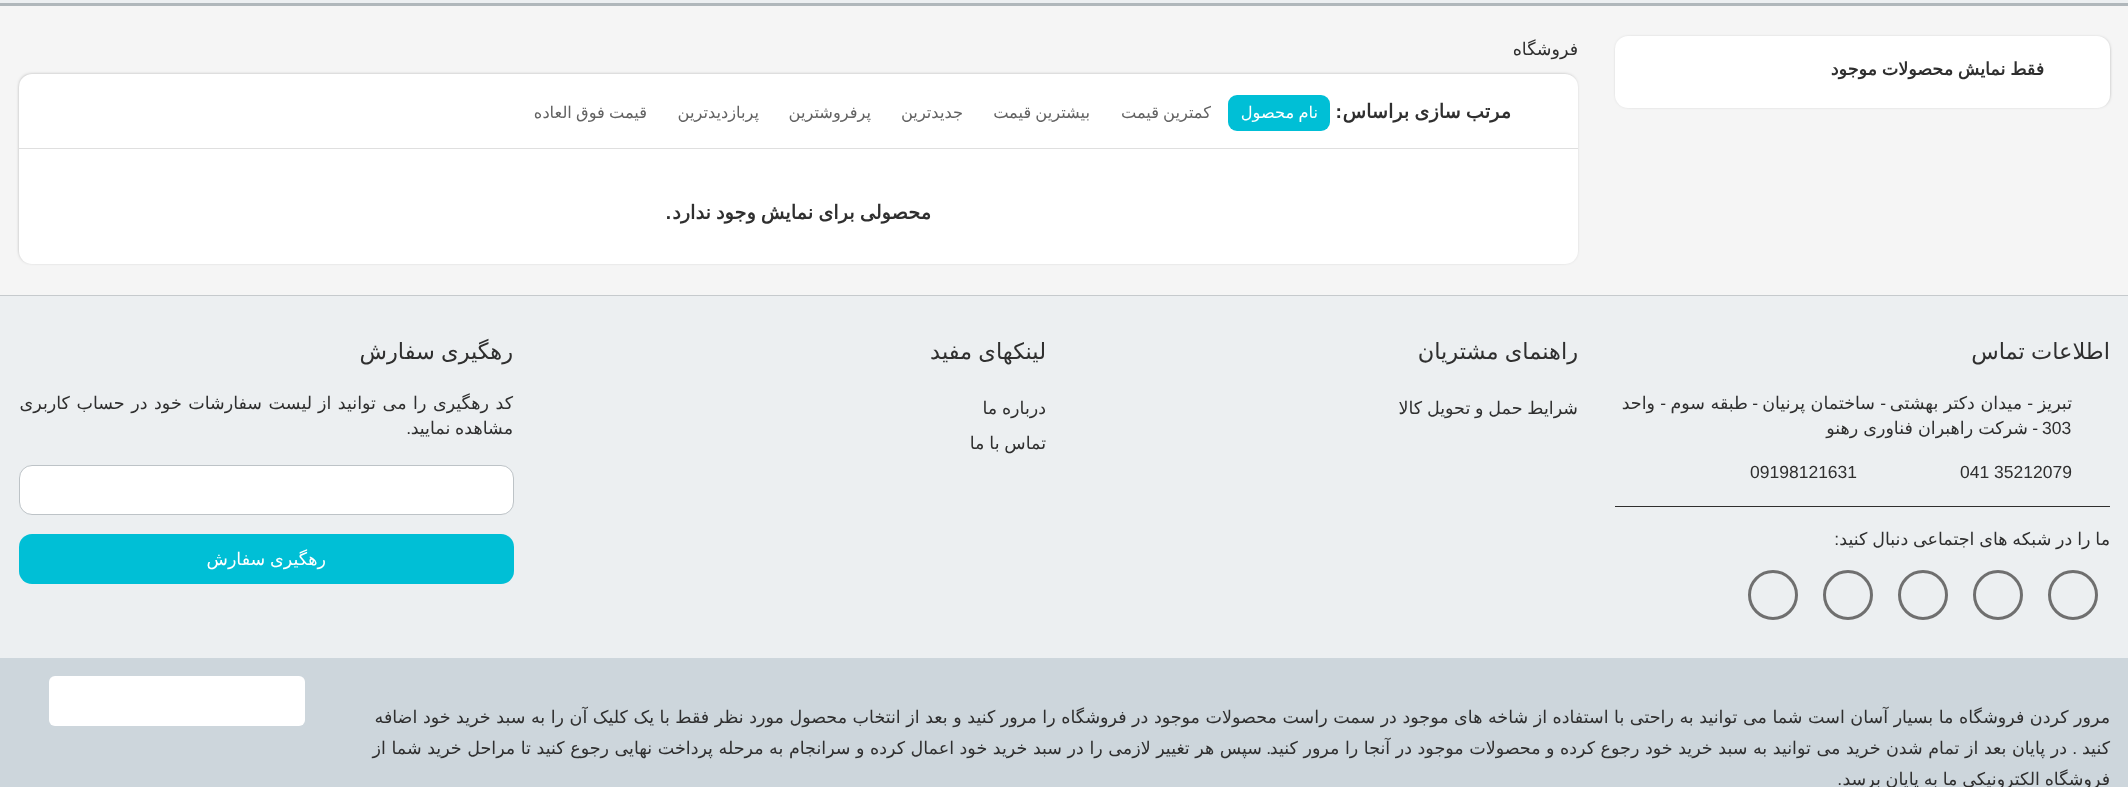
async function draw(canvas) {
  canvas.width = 2128
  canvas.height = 787
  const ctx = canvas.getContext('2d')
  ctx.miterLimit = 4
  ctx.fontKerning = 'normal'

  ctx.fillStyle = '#f5f5f5'
  ctx.fillRect(0, 0, 2128, 787)
  ctx.fillStyle = '#eceff1'
  ctx.fillRect(0, 0, 2128, 3)
  ctx.fillStyle = '#b0b7bb'
  ctx.fillRect(0, 3, 2128, 3)
  ctx.fillStyle = '#000000bf'
  ctx.filter = 'blur(2px)'
  ctx.beginPath()
  ctx.roundRect(1618, 39, 490, 66, 10)
  ctx.fill()
  ctx.filter = 'none'
  ctx.fillStyle = '#fff'
  ctx.beginPath()
  ctx.roundRect(1615, 36, 495, 72, 13)
  ctx.fill()
  ctx.wordSpacing = '-0.75px'
  ctx.direction = 'rtl'
  ctx.font = 'bold 17.5px DejaVu Sans'
  ctx.fillStyle = '#2f2f2f'
  ctx.fillText('فقط نمایش محصولات موجود', 2044, 75)
  ctx.wordSpacing = '0px'
  ctx.font = '17.5px DejaVu Sans'
  ctx.fillText('فروشگاه', 1578, 55)
  ctx.fillStyle = '#000000bf'
  ctx.filter = 'blur(2px)'
  ctx.beginPath()
  ctx.roundRect(21, 76, 1554, 185, 10)
  ctx.fill()
  ctx.filter = 'none'
  ctx.fillStyle = '#fff'
  ctx.beginPath()
  ctx.roundRect(19, 74, 1559, 190, 13)
  ctx.fill()
  ctx.fillStyle = '#dfdfdf'
  ctx.fillRect(19, 148, 1559, 1)
  ctx.wordSpacing = '-1px'
  ctx.font = 'bold 19.25px DejaVu Sans'
  ctx.fillStyle = '#2f2f2f'
  ctx.fillText('مرتب سازی براساس', 1511, 118)
  ctx.wordSpacing = '0px'
  ctx.font = 'bold 19.25px Liberation Sans'
  ctx.fillText(':', 1342, 118)
  ctx.fillStyle = '#00bfd6'
  ctx.beginPath()
  ctx.roundRect(1228, 95, 102, 36, 9)
  ctx.fill()
  ctx.wordSpacing = '-1px'
  ctx.font = '16.25px DejaVu Sans'
  ctx.fillStyle = '#fff'
  ctx.fillText('نام محصول', 1318, 118)
  ctx.fillStyle = '#626262'
  ctx.fillText('کمترین قیمت', 1211, 118)
  ctx.fillText('بیشترین قیمت', 1090, 118)
  ctx.wordSpacing = '0px'
  ctx.fillText('جدیدترین', 963, 118)
  ctx.fillText('پرفروشترین', 871, 118)
  ctx.fillText('پربازدیدترین', 759, 118)
  ctx.wordSpacing = '-1px'
  ctx.fillText('قیمت فوق العاده', 647, 118)
  ctx.font = 'bold 19.25px DejaVu Sans'
  ctx.fillStyle = '#2f2f2f'
  ctx.fillText('محصولی برای نمایش وجود ندارد', 931, 219)
  ctx.wordSpacing = '0px'
  ctx.font = 'bold 19.25px Liberation Sans'
  ctx.fillText('.', 671, 219)
  ctx.fillStyle = '#eceff1'
  ctx.fillRect(0, 296, 2128, 362)
  ctx.fillStyle = '#c6cacd'
  ctx.fillRect(0, 295, 2128, 1)
  ctx.wordSpacing = '-1px'
  ctx.font = '22.5px DejaVu Sans'
  ctx.fillStyle = '#2f2f2f'
  ctx.fillText('اطلاعات تماس', 2110, 359)
  ctx.wordSpacing = '0px'
  ctx.font = '17.5px DejaVu Sans'
  ctx.fillText('تبریز', 2072, 409)
  ctx.font = '17.5px Liberation Sans'
  ctx.fillText('-', 2033, 409)
  ctx.font = '17.5px DejaVu Sans'
  ctx.fillText('میدان دکتر بهشتی', 2022, 409)
  ctx.font = '17.5px Liberation Sans'
  ctx.fillText('-', 1886, 409)
  ctx.font = '17.5px DejaVu Sans'
  ctx.fillText('ساختمان پرنیان', 1875, 409)
  ctx.font = '17.5px Liberation Sans'
  ctx.fillText('-', 1758, 409)
  ctx.font = '17.5px DejaVu Sans'
  ctx.fillText('طبقه سوم', 1748, 409)
  ctx.font = '17.5px Liberation Sans'
  ctx.fillText('-', 1666, 409)
  ctx.font = '17.5px DejaVu Sans'
  ctx.fillText('واحد', 1655, 409)
  ctx.direction = 'ltr'
  ctx.font = '17.5px Liberation Sans'
  ctx.fillText('303', 2042, 434)
  ctx.direction = 'rtl'
  ctx.fillText('-', 2038, 434)
  ctx.wordSpacing = '-0.5px'
  ctx.font = '17.5px DejaVu Sans'
  ctx.fillText('شرکت راهبران فناوری رهنو', 2028, 434)
  ctx.wordSpacing = '0px'
  ctx.direction = 'ltr'
  ctx.font = '17.5px Liberation Sans'
  ctx.fillText('041 35212079', 1960, 478)
  ctx.fillText('09198121631', 1750, 478)
  ctx.fillRect(1615, 506, 495, 1)
  ctx.wordSpacing = '-0.75px'
  ctx.direction = 'rtl'
  ctx.font = '17.5px DejaVu Sans'
  ctx.fillText('ما را در شبکه های اجتماعی دنبال کنید', 2110, 545)
  ctx.wordSpacing = '0px'
  ctx.font = '17.5px Liberation Sans'
  ctx.fillText(':', 1839, 545)
  ctx.beginPath()
  ctx.arc(2073, 595, 23.5, 0, 2 * Math.PI)
  ctx.strokeStyle = '#6f6f6f'
  ctx.lineWidth = 3
  ctx.stroke()
  ctx.beginPath()
  ctx.arc(1998, 595, 23.5, 0, 2 * Math.PI)
  ctx.stroke()
  ctx.beginPath()
  ctx.arc(1923, 595, 23.5, 0, 2 * Math.PI)
  ctx.stroke()
  ctx.beginPath()
  ctx.arc(1848, 595, 23.5, 0, 2 * Math.PI)
  ctx.stroke()
  ctx.beginPath()
  ctx.arc(1773, 595, 23.5, 0, 2 * Math.PI)
  ctx.stroke()
  ctx.wordSpacing = '-1px'
  ctx.font = '22.5px DejaVu Sans'
  ctx.fillText('راهنمای مشتریان', 1578, 359)
  ctx.wordSpacing = '-0.75px'
  ctx.font = '17.5px DejaVu Sans'
  ctx.fillText('شرایط حمل و تحویل کالا', 1578, 414)
  ctx.wordSpacing = '-1px'
  ctx.font = '22.5px DejaVu Sans'
  ctx.fillText('لینکهای مفید', 1046, 359)
  ctx.wordSpacing = '-0.75px'
  ctx.font = '17.5px DejaVu Sans'
  ctx.fillText('درباره ما', 1046, 414)
  ctx.fillText('تماس با ما', 1046, 449)
  ctx.wordSpacing = '-1px'
  ctx.font = '22.5px DejaVu Sans'
  ctx.fillText('رهگیری سفارش', 513, 359)
  ctx.wordSpacing = '1px'
  ctx.font = '17.5px DejaVu Sans'
  ctx.fillText('کد رهگیری را می توانید از', 513, 409)
  ctx.fillText('لیست سفارشات خود در حساب کاربری', 312, 409)
  ctx.wordSpacing = '-0.75px'
  ctx.fillText('مشاهده نمایید', 513, 434)
  ctx.wordSpacing = '0px'
  ctx.font = '17.5px Liberation Sans'
  ctx.fillText('.', 411, 434)
  ctx.fillStyle = '#fff'
  ctx.beginPath()
  ctx.roundRect(19.5, 465.5, 494, 49, 12.5)
  ctx.fill()
  ctx.strokeStyle = '#bdc3c7'
  ctx.lineWidth = 1
  ctx.stroke()
  ctx.fillStyle = '#00bfd6'
  ctx.beginPath()
  ctx.roundRect(19, 534, 495, 50, 13)
  ctx.fill()
  ctx.wordSpacing = '-0.75px'
  ctx.font = '17.5px DejaVu Sans'
  ctx.fillStyle = '#fff'
  ctx.fillText('رهگیری سفارش', 326, 565)
  ctx.fillStyle = '#cdd6dc'
  ctx.fillRect(0, 658, 2128, 129)
  ctx.fillStyle = '#fff'
  ctx.beginPath()
  ctx.roundRect(49, 676, 256, 50, 6)
  ctx.fill()
  ctx.wordSpacing = '0px'
  ctx.fillStyle = '#2f2f2f'
  ctx.fillText('مرور کردن فروشگاه ما بسیار آسان است شما می توانید به راحتی با استفاده از شاخه های موجود در سمت راست محصولات موجود در فروشگاه را مرور کنید و بعد از انتخاب محصول مورد نظر فقط با یک کلیک آن را به سبد خرید خود اضافه', 2110, 723)
  ctx.fillText('کنید', 2110, 754)
  ctx.font = '17.5px Liberation Sans'
  ctx.fillText('.', 2077, 754)
  ctx.font = '17.5px DejaVu Sans'
  ctx.fillText('در پایان بعد از تمام شدن خرید می توانید به سبد خرید خود رجوع کرده و محصولات موجود در آنجا را مرور کنید', 2067, 754)
  ctx.font = '17.5px Liberation Sans'
  ctx.fillText('.', 1271, 754)
  ctx.font = '17.5px DejaVu Sans'
  ctx.fillText('سپس هر تغییر لازمی را در سبد خرید خود اعمال کرده و سرانجام به مرحله پرداخت نهایی رجوع کنید تا مراحل خرید شما از', 1262, 754)
  ctx.wordSpacing = '-0.75px'
  ctx.fillText('فروشگاه الکترونیکی ما به پایان برسد', 2110, 785)
  ctx.wordSpacing = '0px'
  ctx.font = '17.5px Liberation Sans'
  ctx.fillText('.', 1842, 785)
}

draw(document.querySelector('canvas'))
